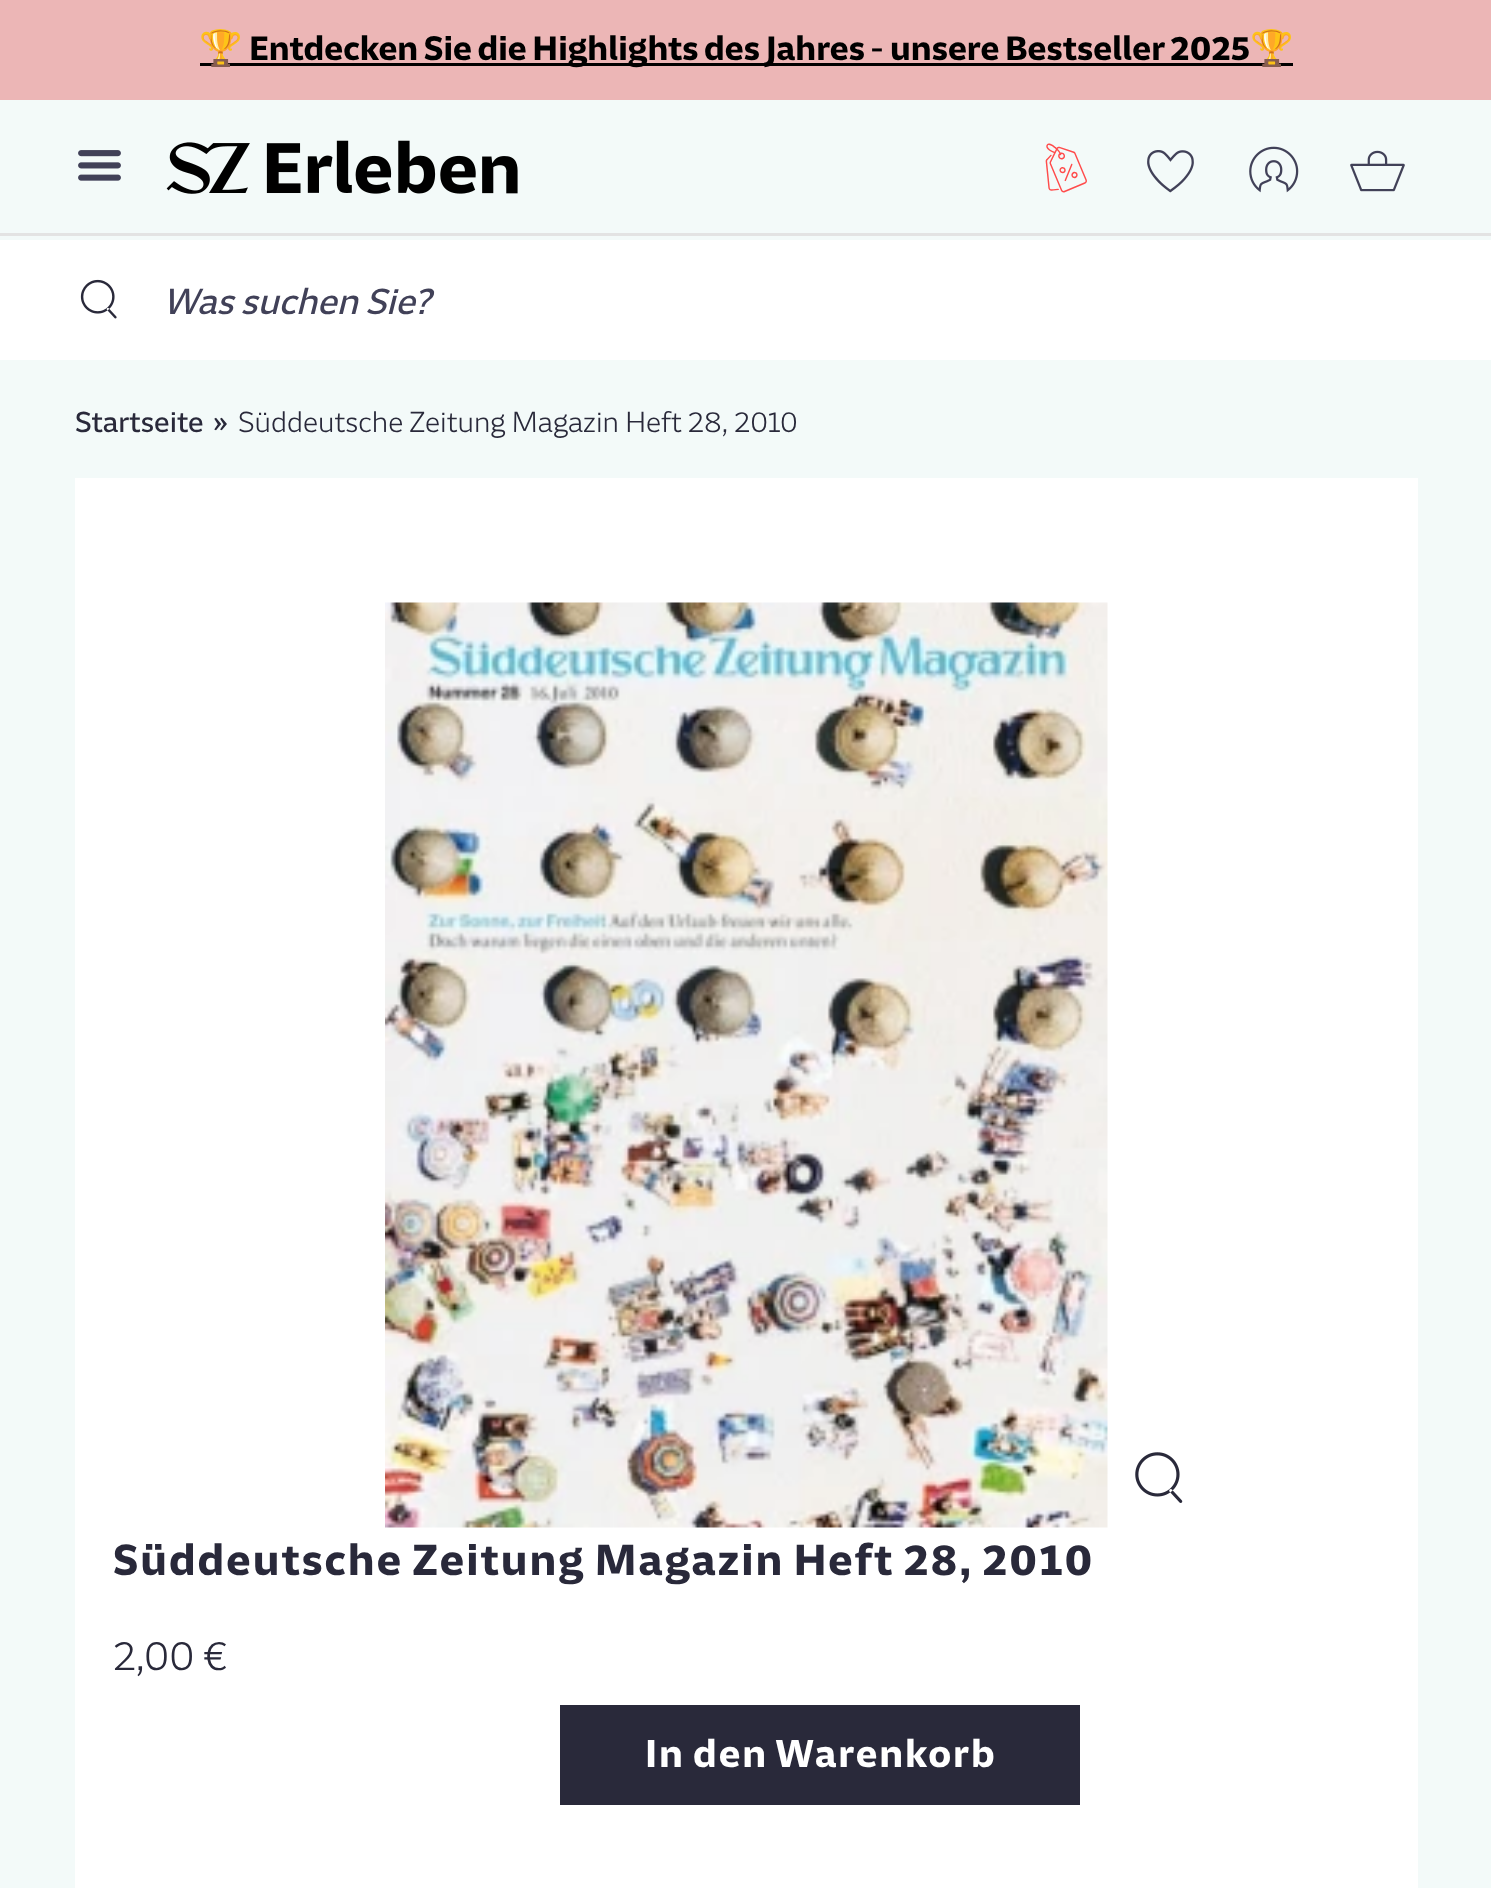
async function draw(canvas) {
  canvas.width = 1491
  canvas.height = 1888
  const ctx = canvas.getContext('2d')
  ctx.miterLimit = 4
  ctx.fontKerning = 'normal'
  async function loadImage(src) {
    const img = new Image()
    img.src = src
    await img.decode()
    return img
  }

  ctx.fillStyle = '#f3faf9'
  ctx.fillRect(0, 0, 1491, 1888)
  ctx.fillStyle = '#ecb6b6'
  ctx.fillRect(0, 0, 1491, 100)
  ctx.fillStyle = '#000'
  ctx.fillRect(200, 63, 1093, 3)
  ctx.font = '35px Noto Color Emoji'
  ctx.fillText('🏆', 199, 60)
  ctx.font = 'bold 35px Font'
  ctx.fillText('Entdecken Sie die Highlights des Jahres', 249, 60)
  ctx.font = '35px Font'
  ctx.fillText('-', 870, 60)
  ctx.font = 'bold 35px Font'
  ctx.fillText('unsere Bestseller 2025', 890, 60)
  ctx.font = '35px Noto Color Emoji'
  ctx.fillText('🏆', 1250, 60)
  ctx.drawImage(await loadImage('image0.png'), 78, 150, 43, 31)
  ctx.drawImage(await loadImage('image1.png'), 166, 140, 352, 54)
  ctx.drawImage(await loadImage('image2.png'), 1045, 143, 42, 50)
  ctx.drawImage(await loadImage('image3.png'), 1147, 150, 47, 43)
  ctx.drawImage(await loadImage('image4.png'), 1249, 146, 50, 47)
  ctx.drawImage(await loadImage('image5.png'), 1350, 150, 55, 42)
  ctx.fillStyle = '#e3e3e3'
  ctx.fillRect(0, 233, 1491, 3)
  ctx.fillStyle = '#fff'
  ctx.fillRect(0, 240, 1491, 120)
  ctx.drawImage(await loadImage('image6.png'), 80, 279, 37, 40)
  ctx.font = 'italic 37.5px Font'
  ctx.fillStyle = '#414158'
  ctx.fillText('Was suchen Sie?', 163, 314)
  ctx.font = '30px Font'
  ctx.fillStyle = '#29293a'
  ctx.fillText('Startseite', 75, 432)
  ctx.fillText('»', 213, 432)
  ctx.font = '30px "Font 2"'
  ctx.fillText('Süddeutsche Zeitung Magazin Heft 28, 2010', 238, 432)
  ctx.fillStyle = '#fff'
  ctx.fillRect(75, 478, 1343, 1410)
  ctx.drawImage(await loadImage('image7.png'), 385, 602, 723, 926)
  ctx.drawImage(await loadImage('image8.png'), 1135, 1452, 48, 51)
  ctx.letterSpacing = '2px'
  ctx.font = 'bold 45px Font'
  ctx.fillStyle = '#29293a'
  ctx.fillText('Süddeutsche Zeitung Magazin Heft 28, 2010', 113, 1575)
  ctx.letterSpacing = '0px'
  ctx.font = '42.5px "Font 2"'
  ctx.fillText('2,00 €', 113, 1670)
  ctx.fillRect(560, 1705, 520, 100)
  ctx.letterSpacing = '1.9px'
  ctx.font = 'bold 40px Font'
  ctx.fillStyle = '#fff'
  ctx.fillText('In den Warenkorb', 645, 1767)
}

draw(document.querySelector('canvas'))
